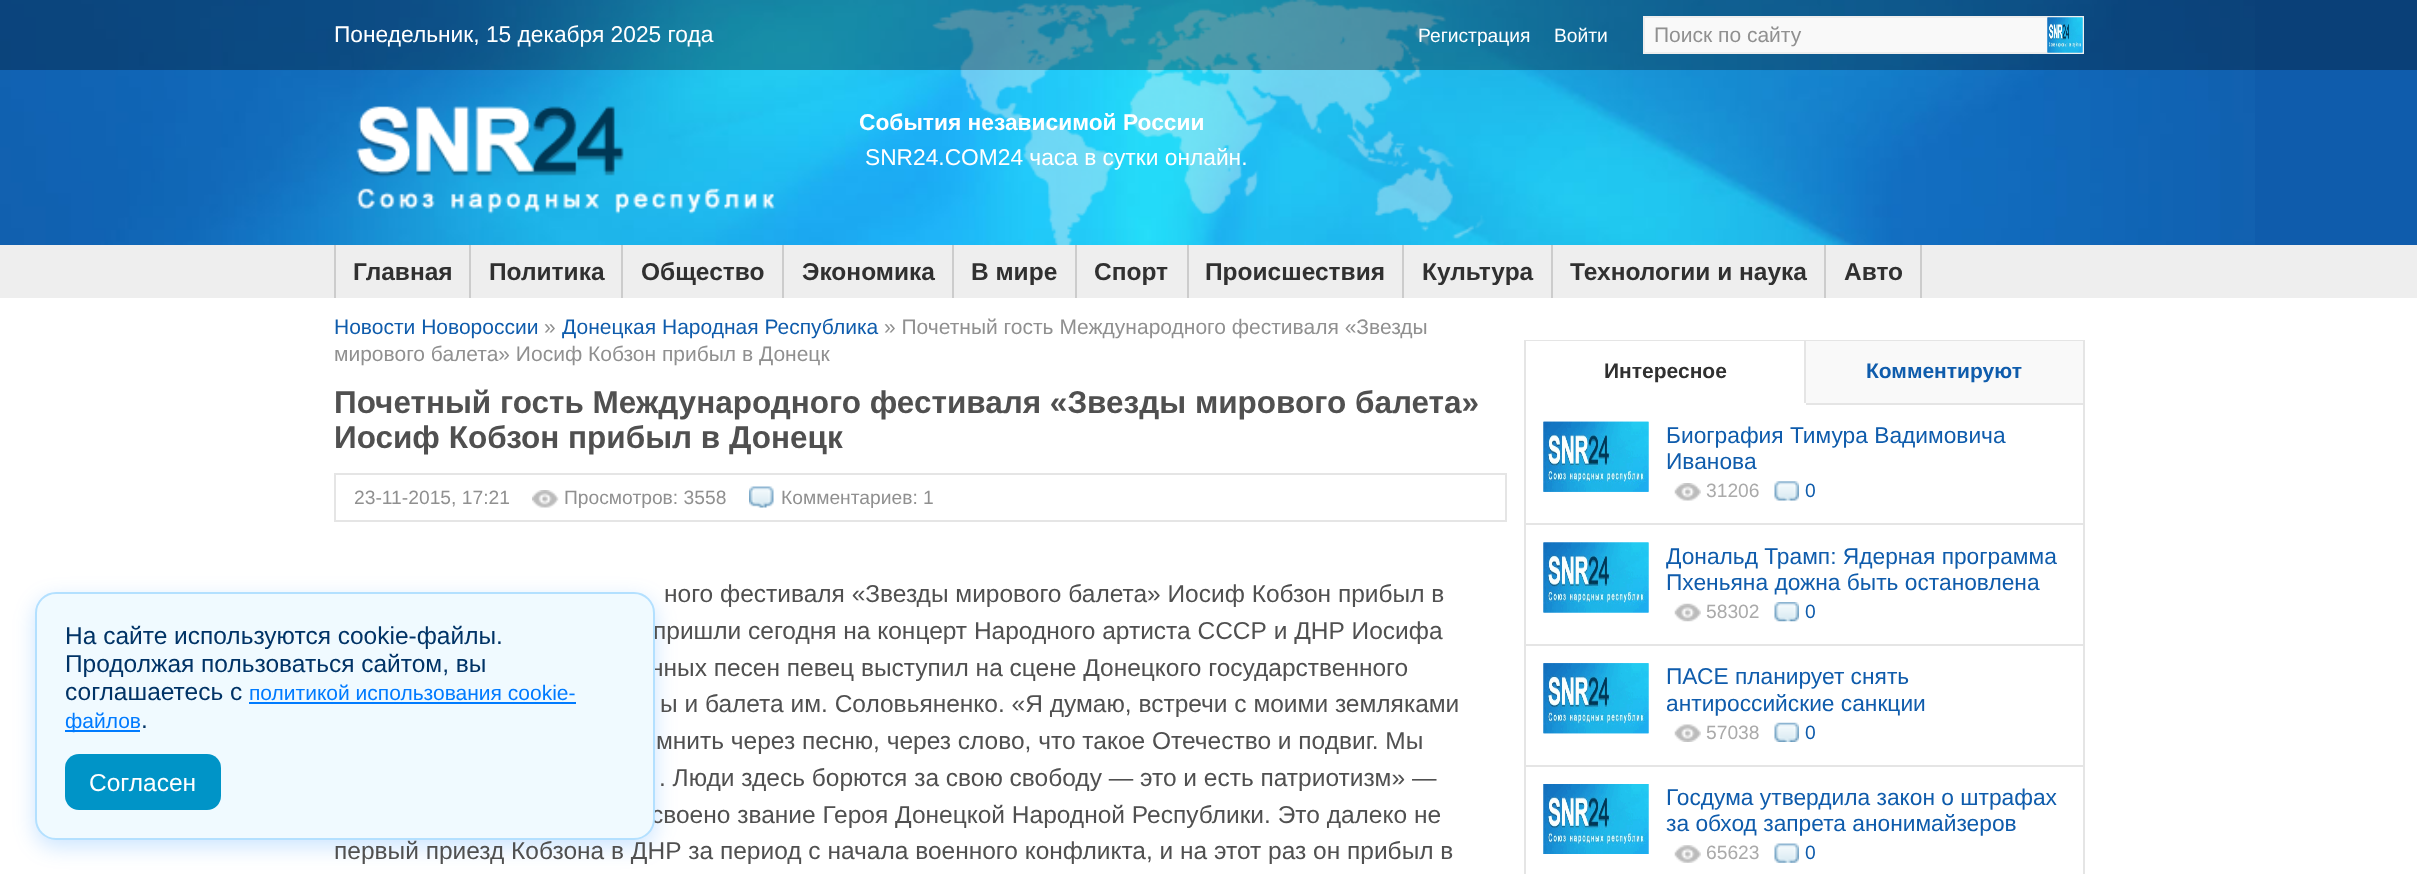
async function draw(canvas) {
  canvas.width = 2417
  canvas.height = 874
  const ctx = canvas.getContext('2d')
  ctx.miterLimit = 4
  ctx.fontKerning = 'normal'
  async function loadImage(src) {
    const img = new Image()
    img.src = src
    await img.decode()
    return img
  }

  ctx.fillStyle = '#fff'
  ctx.fillRect(0, 0, 2417, 874)
  ctx.fillStyle = '#0f5cac'
  ctx.fillRect(2255, 0, 162, 245)
  ctx.drawImage(await loadImage('image0.png'), 0, 0, 2255, 245)
  ctx.fillStyle = '#0000004d'
  ctx.fillRect(0, 0, 2417, 70)
  ctx.font = '22.75px Liberation Sans'
  ctx.fillStyle = '#fff'
  ctx.fillText('Понедельник, 15 декабря 2025 года', 334, 42)
  ctx.font = '19.25px Liberation Sans'
  ctx.fillText('Регистрация', 1418, 42)
  ctx.fillText('Войти', 1554, 42)
  ctx.fillStyle = '#f9f9f9'
  ctx.fillRect(1645, 18, 403, 34)
  ctx.strokeStyle = '#eee'
  ctx.lineWidth = 2
  ctx.strokeRect(1644, 17, 439, 36)
  ctx.font = '21px Liberation Sans'
  ctx.fillStyle = '#909090'
  ctx.fillText('Поиск по сайту', 1654, 42)
  ctx.drawImage(await loadImage('image1.png'), 2047, 17, 36, 36)
  ctx.drawImage(await loadImage('image2.png'), 2047, 17, 36, 36)
  ctx.drawImage(await loadImage('image3.png'), 356, 106, 420, 108)
  ctx.font = 'bold 22.75px Liberation Sans'
  ctx.fillStyle = '#fff'
  ctx.fillText('События независимой России', 859, 130)
  ctx.font = '22.75px Liberation Sans'
  ctx.fillText('SNR24.COM24 часа в сутки онлайн.', 865, 165)
  ctx.fillStyle = '#eee'
  ctx.fillRect(0, 245, 2417, 53)
  ctx.fillStyle = '#ccc'
  ctx.fillRect(334, 245, 2, 53)
  ctx.fillRect(469, 245, 2, 53)
  ctx.font = 'bold 24.5px Liberation Sans'
  ctx.fillStyle = '#303030'
  ctx.fillText('Главная', 353, 280)
  ctx.fillStyle = '#ccc'
  ctx.fillRect(621, 245, 2, 53)
  ctx.fillStyle = '#303030'
  ctx.fillText('Политика', 489, 280)
  ctx.fillStyle = '#ccc'
  ctx.fillRect(782, 245, 2, 53)
  ctx.fillStyle = '#303030'
  ctx.fillText('Общество', 641, 280)
  ctx.fillStyle = '#ccc'
  ctx.fillRect(952, 245, 2, 53)
  ctx.fillStyle = '#303030'
  ctx.fillText('Экономика', 802, 280)
  ctx.fillStyle = '#ccc'
  ctx.fillRect(1075, 245, 2, 53)
  ctx.fillStyle = '#303030'
  ctx.fillText('В мире', 971, 280)
  ctx.fillStyle = '#ccc'
  ctx.fillRect(1187, 245, 2, 53)
  ctx.fillStyle = '#303030'
  ctx.fillText('Спорт', 1094, 280)
  ctx.fillStyle = '#ccc'
  ctx.fillRect(1402, 245, 2, 53)
  ctx.fillStyle = '#303030'
  ctx.fillText('Происшествия', 1205, 280)
  ctx.fillStyle = '#ccc'
  ctx.fillRect(1551, 245, 2, 53)
  ctx.fillStyle = '#303030'
  ctx.fillText('Культура', 1422, 280)
  ctx.fillStyle = '#ccc'
  ctx.fillRect(1824, 245, 2, 53)
  ctx.fillStyle = '#303030'
  ctx.fillText('Технологии и наука', 1570, 280)
  ctx.fillStyle = '#ccc'
  ctx.fillRect(1920, 245, 2, 53)
  ctx.fillStyle = '#303030'
  ctx.fillText('Авто', 1844, 280)
  ctx.fillStyle = '#007bff33'
  ctx.filter = 'blur(10.5px)'
  ctx.beginPath()
  ctx.roundRect(35, 599, 620, 248, 21)
  ctx.fill()
  ctx.filter = 'none'
  ctx.font = '24.5px Liberation Sans'
  ctx.fillStyle = '#505050'
  ctx.fillText('пришли сегодня на концерт Народного артиста СССР и ДНР Иосифа', 653, 639)
  ctx.fillText('нных песен певец выступил на сцене Донецкого государственного', 650, 676)
  ctx.fillText('своено звание Героя Донецкой Народной Республики. Это далеко не', 651, 823)
  ctx.fillStyle = '#f0faff'
  ctx.beginPath()
  ctx.roundRect(36, 593, 618, 246, 20)
  ctx.fill()
  ctx.strokeStyle = '#b3e0ff'
  ctx.stroke()
  ctx.fillStyle = '#036'
  ctx.fillText('На сайте используются cookie-файлы.', 65, 644)
  ctx.fillText('Продолжая пользоваться сайтом, вы', 65, 672)
  ctx.fillText('соглашаетесь с', 65, 700)
  ctx.font = '21px Liberation Sans'
  ctx.fillStyle = '#007bff'
  ctx.fillText('политикой использования cookie-', 249, 700)
  ctx.fillRect(249, 702, 327, 2)
  ctx.fillRect(65, 730, 75, 2)
  ctx.fillText('файлов', 65, 728)
  ctx.font = '24.5px Liberation Sans'
  ctx.fillStyle = '#036'
  ctx.fillText('.', 141, 728)
  ctx.fillStyle = '#0094c7'
  ctx.beginPath()
  ctx.roundRect(65, 754, 156, 56, 14)
  ctx.fill()
  ctx.fillStyle = '#fff'
  ctx.fillText('Согласен', 89, 791)
  ctx.font = '21px Liberation Sans'
  ctx.fillStyle = '#0f5cac'
  ctx.fillText('Новости Новороссии', 334, 334)
  ctx.fillStyle = '#909090'
  ctx.fillText('»', 544, 334)
  ctx.fillStyle = '#0f5cac'
  ctx.fillText('Донецкая Народная Республика', 562, 334)
  ctx.fillStyle = '#909090'
  ctx.fillText('» Почетный гость Международного фестиваля «Звезды', 884, 334)
  ctx.fillText('мирового балета» Иосиф Кобзон прибыл в Донецк', 334, 361)
  ctx.font = 'bold 31.5px Liberation Sans'
  ctx.fillStyle = '#505050'
  ctx.fillText('Почетный гость Международного фестиваля «Звезды мирового балета»', 334, 413)
  ctx.fillText('Иосиф Кобзон прибыл в Донецк', 334, 448)
  ctx.strokeStyle = '#e5e5e5'
  ctx.strokeRect(335, 474, 1171, 47)
  ctx.font = '19.25px Liberation Sans'
  ctx.fillStyle = '#909090'
  ctx.fillText('23-11-2015, 17:21', 354, 504)
  ctx.drawImage(await loadImage('image4.png'), 532, 490, 27, 18)
  ctx.fillText('Просмотров: 3558', 564, 504)
  ctx.drawImage(await loadImage('image5.png'), 749, 486, 25, 22)
  ctx.fillText('Комментариев: 1', 781, 504)
  ctx.font = '24.5px Liberation Sans'
  ctx.fillStyle = '#505050'
  ctx.fillText('ного фестиваля «Звезды мирового балета» Иосиф Кобзон прибыл в', 664, 602)
  ctx.fillText('ы и балета им. Соловьяненко. «Я думаю, встречи с моими земляками', 660, 712)
  ctx.fillText('мнить через песню, через слово, что такое Отечество и подвиг. Мы', 656, 749)
  ctx.fillText('. Люди здесь борются за свою свободу — это и есть патриотизм» —', 659, 786)
  ctx.fillText('первый приезд Кобзона в ДНР за период с начала военного конфликта, и на этот раз он прибыл в', 334, 859)
  ctx.fillStyle = '#e5e5e5'
  ctx.fillRect(1524, 340, 560, 1)
  ctx.fillRect(2083, 340, 2, 534)
  ctx.fillRect(1524, 340, 2, 534)
  ctx.fillRect(1804, 341, 2, 62)
  ctx.font = 'bold 21px Liberation Sans'
  ctx.fillStyle = '#303030'
  ctx.fillText('Интересное', 1604, 378)
  ctx.fillStyle = '#f9f9f9'
  ctx.fillRect(1806, 341, 277, 62)
  ctx.fillStyle = '#e5e5e5'
  ctx.fillRect(1806, 403, 277, 2)
  ctx.fillStyle = '#0f5cac'
  ctx.fillText('Комментируют', 1866, 378)
  ctx.fillStyle = '#e5e5e5'
  ctx.fillRect(1526, 523, 557, 2)
  ctx.drawImage(await loadImage('image6.png'), 1543, 421, 106, 71)
  ctx.drawImage(await loadImage('image7.png'), 1543, 421, 106, 71)
  ctx.font = '22.75px Liberation Sans'
  ctx.fillStyle = '#0f5cac'
  ctx.fillText('Биография Тимура Вадимовича', 1666, 443)
  ctx.fillText('Иванова', 1666, 469)
  ctx.drawImage(await loadImage('image8.png'), 1674, 483, 27, 18)
  ctx.font = '19.25px Liberation Sans'
  ctx.fillStyle = '#aaa'
  ctx.fillText('31206', 1706, 497)
  ctx.drawImage(await loadImage('image9.png'), 1774, 481, 25, 20)
  ctx.fillStyle = '#0f5cac'
  ctx.fillText('0', 1805, 497)
  ctx.fillStyle = '#e5e5e5'
  ctx.fillRect(1526, 644, 557, 2)
  ctx.drawImage(await loadImage('image10.png'), 1543, 542, 106, 71)
  ctx.drawImage(await loadImage('image11.png'), 1543, 542, 106, 71)
  ctx.font = '22.75px Liberation Sans'
  ctx.fillStyle = '#0f5cac'
  ctx.fillText('Дональд Трамп: Ядерная программа', 1666, 564)
  ctx.fillText('Пхеньяна дожна быть остановлена', 1666, 590)
  ctx.drawImage(await loadImage('image12.png'), 1674, 603, 27, 19)
  ctx.font = '19.25px Liberation Sans'
  ctx.fillStyle = '#aaa'
  ctx.fillText('58302', 1706, 618)
  ctx.drawImage(await loadImage('image13.png'), 1774, 602, 25, 20)
  ctx.fillStyle = '#0f5cac'
  ctx.fillText('0', 1805, 618)
  ctx.fillStyle = '#e5e5e5'
  ctx.fillRect(1526, 765, 557, 2)
  ctx.drawImage(await loadImage('image14.png'), 1543, 663, 106, 71)
  ctx.drawImage(await loadImage('image15.png'), 1543, 663, 106, 71)
  ctx.font = '22.75px Liberation Sans'
  ctx.fillStyle = '#0f5cac'
  ctx.fillText('ПАСЕ планирует снять', 1666, 684)
  ctx.fillText('антироссийские санкции', 1666, 711)
  ctx.drawImage(await loadImage('image16.png'), 1674, 724, 27, 18)
  ctx.font = '19.25px Liberation Sans'
  ctx.fillStyle = '#aaa'
  ctx.fillText('57038', 1706, 739)
  ctx.drawImage(await loadImage('image17.png'), 1774, 722, 25, 20)
  ctx.fillStyle = '#0f5cac'
  ctx.fillText('0', 1805, 739)
  ctx.drawImage(await loadImage('image18.png'), 1543, 784, 106, 70)
  ctx.drawImage(await loadImage('image19.png'), 1543, 784, 106, 70)
  ctx.font = '22.75px Liberation Sans'
  ctx.fillText('Госдума утвердила закон о штрафах', 1666, 805)
  ctx.fillText('за обход запрета анонимайзеров', 1666, 831)
  ctx.drawImage(await loadImage('image20.png'), 1674, 845, 27, 18)
  ctx.font = '19.25px Liberation Sans'
  ctx.fillStyle = '#aaa'
  ctx.fillText('65623', 1706, 859)
  ctx.drawImage(await loadImage('image21.png'), 1774, 843, 25, 20)
  ctx.fillStyle = '#0f5cac'
  ctx.fillText('0', 1805, 859)
}

draw(document.querySelector('canvas'))
